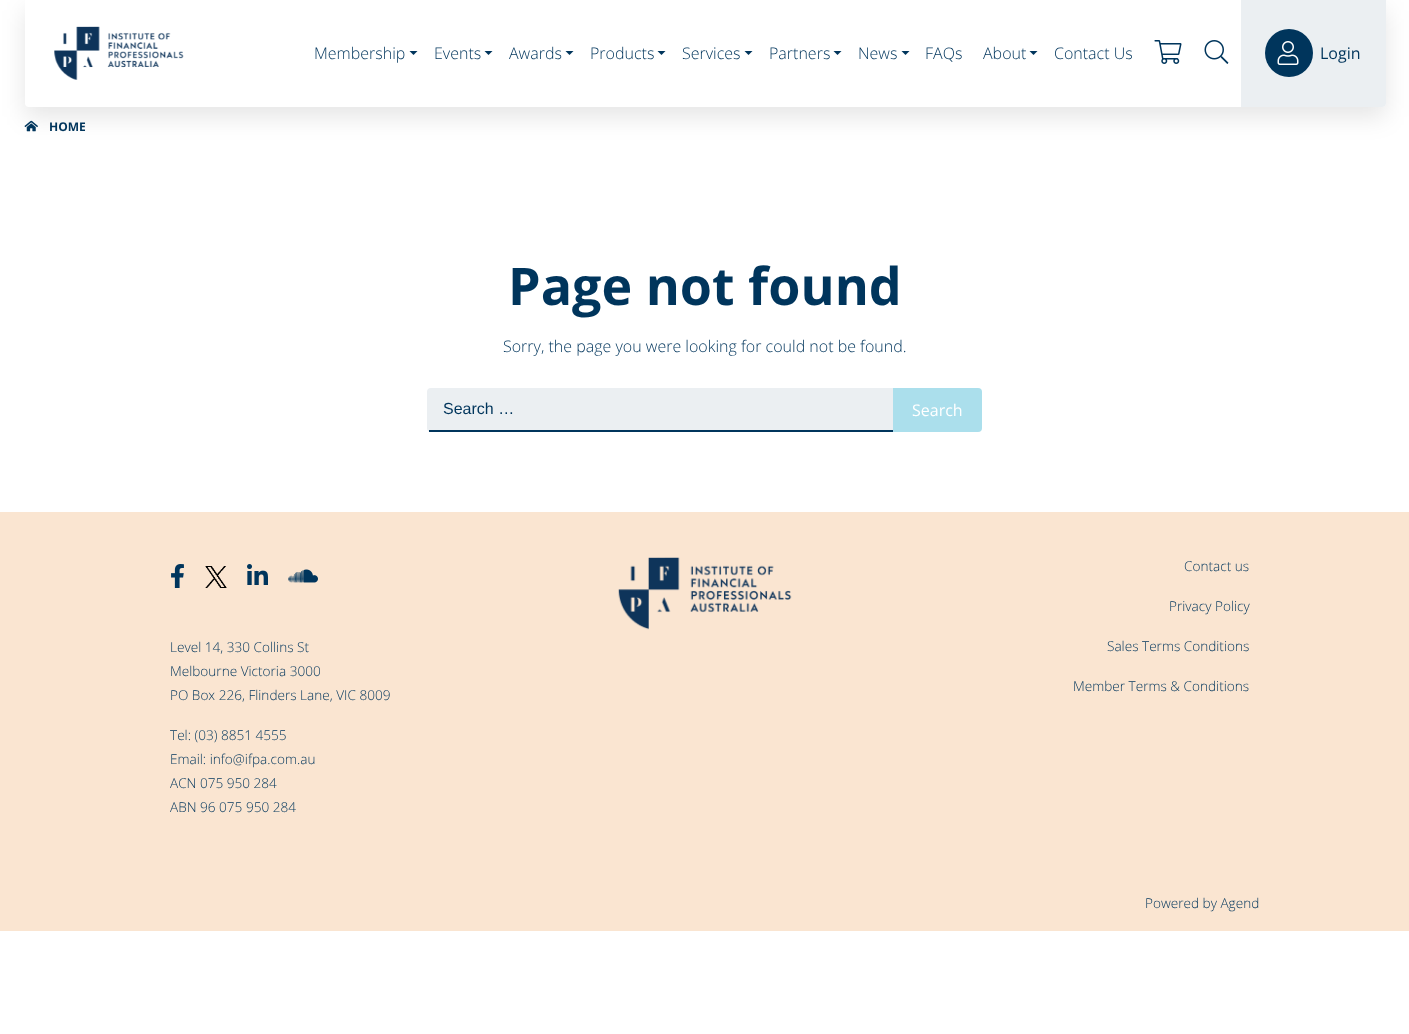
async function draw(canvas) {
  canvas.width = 1409
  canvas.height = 1034
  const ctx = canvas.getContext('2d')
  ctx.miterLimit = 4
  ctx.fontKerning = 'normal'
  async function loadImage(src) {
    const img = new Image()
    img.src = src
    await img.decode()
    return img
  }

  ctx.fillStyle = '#fff'
  ctx.fillRect(0, 0, 1409, 1034)
  ctx.fillStyle = '#0000001a'
  ctx.filter = 'blur(12.5px)'
  ctx.beginPath()
  ctx.roundRect(25, 10, 1361, 107, 4)
  ctx.fill()
  ctx.filter = 'none'
  ctx.fillStyle = '#fff'
  ctx.beginPath()
  ctx.roundRect(25, 0, 1361, 107, [0, 0, 4, 4])
  ctx.fill()
  ctx.drawImage(await loadImage('image0.png'), 54, 26, 130, 54)
  ctx.font = '300 16px Open Sans'
  ctx.fillStyle = '#00355c'
  ctx.fillText('Membership', 314, 59)
  ctx.beginPath()
  ctx.moveTo(409.5, 51)
  ctx.lineTo(417.5, 51)
  ctx.lineTo(413.5, 55)
  ctx.closePath()
  ctx.fill()
  ctx.fillText('Events', 434, 59)
  ctx.beginPath()
  ctx.moveTo(484.5, 51)
  ctx.lineTo(492.5, 51)
  ctx.lineTo(488.5, 55)
  ctx.closePath()
  ctx.fill()
  ctx.fillText('Awards', 509, 59)
  ctx.beginPath()
  ctx.moveTo(565.5, 51)
  ctx.lineTo(573.5, 51)
  ctx.lineTo(569.5, 55)
  ctx.closePath()
  ctx.fill()
  ctx.fillText('Products', 590, 59)
  ctx.beginPath()
  ctx.moveTo(657.5, 51)
  ctx.lineTo(665.5, 51)
  ctx.lineTo(661.5, 55)
  ctx.closePath()
  ctx.fill()
  ctx.fillText('Services', 682, 59)
  ctx.beginPath()
  ctx.moveTo(744.5, 51)
  ctx.lineTo(752.5, 51)
  ctx.lineTo(748.5, 55)
  ctx.closePath()
  ctx.fill()
  ctx.fillText('Partners', 769, 59)
  ctx.beginPath()
  ctx.moveTo(833.5, 51)
  ctx.lineTo(841.5, 51)
  ctx.lineTo(837.5, 55)
  ctx.closePath()
  ctx.fill()
  ctx.fillText('News', 858, 59)
  ctx.beginPath()
  ctx.moveTo(901.5, 51)
  ctx.lineTo(909.5, 51)
  ctx.lineTo(905.5, 55)
  ctx.closePath()
  ctx.fill()
  ctx.fillText('FAQs', 925, 59)
  ctx.fillText('About', 983, 59)
  ctx.beginPath()
  ctx.moveTo(1029.5, 51)
  ctx.lineTo(1037.5, 51)
  ctx.lineTo(1033.5, 55)
  ctx.closePath()
  ctx.fill()
  ctx.fillText('Contact Us', 1054, 59)
  ctx.drawImage(await loadImage('image1.png'), 1154, 40, 28, 24)
  ctx.drawImage(await loadImage('image2.png'), 1204, 40, 25, 24)
  ctx.fillStyle = '#ebeff2'
  ctx.beginPath()
  ctx.roundRect(1241, 0, 145, 107, [0, 0, 4, 0])
  ctx.fill()
  ctx.fillStyle = '#00355c'
  ctx.beginPath()
  ctx.arc(1289, 53, 24, 0, 2 * Math.PI)
  ctx.fill()
  ctx.drawImage(await loadImage('image3.png'), 1277, 41, 22, 24)
  ctx.font = '16px Open Sans'
  ctx.fillText('Login', 1320, 59)
  ctx.drawImage(await loadImage('image4.png'), 24, 120, 14, 12)
  ctx.font = 'bold 12px Open Sans'
  ctx.fillText('HOME', 49, 131)
  ctx.font = 'bold 52px Open Sans'
  ctx.fillText('Page not found', 508, 305)
  ctx.font = '300 16px Open Sans'
  ctx.fillText('Sorry, the page you were looking for could not be found.', 503, 352)
  ctx.fillStyle = '#ebeff2'
  ctx.beginPath()
  ctx.roundRect(427, 388, 466, 44, [4, 0, 0, 4])
  ctx.fill()
  ctx.fillStyle = '#00355c'
  ctx.fillRect(429, 430, 464, 2)
  ctx.font = '16px Liberation Sans'
  ctx.fillText('Search …', 443, 414)
  ctx.fillStyle = '#abdfec'
  ctx.beginPath()
  ctx.roundRect(893, 388, 89, 44, [0, 4, 4, 0])
  ctx.fill()
  ctx.font = '16px Open Sans'
  ctx.fillStyle = '#fff'
  ctx.fillText('Search', 912, 416)
  ctx.fillStyle = '#fae5d1'
  ctx.fillRect(0, 512, 1409, 419)
  ctx.drawImage(await loadImage('image5.png'), 618, 557, 174, 73)
  ctx.font = '300 13.6px Open Sans'
  ctx.fillStyle = '#00355c'
  ctx.fillText('Contact us', 1184, 571)
  ctx.fillText('Privacy Policy', 1169, 611)
  ctx.fillText('Sales Terms Conditions', 1107, 651)
  ctx.fillText('Member Terms & Conditions', 1073, 691)
  ctx.drawImage(await loadImage('image6.png'), 171, 564, 13, 24)
  ctx.drawImage(await loadImage('image7.png'), 205, 566, 22, 22)
  ctx.drawImage(await loadImage('image8.png'), 247, 564, 21, 21)
  ctx.drawImage(await loadImage('image9.png'), 288, 569, 30, 14)
  ctx.fillText('Level 14, 330 Collins St', 170, 652)
  ctx.fillText('Melbourne Victoria 3000', 170, 676)
  ctx.fillText('PO Box 226, Flinders Lane, VIC 8009', 170, 700)
  ctx.fillText('Tel: (03) 8851 4555', 170, 740)
  ctx.fillText('Email: info@ifpa.com.au', 170, 764)
  ctx.fillText('ACN 075 950 284', 170, 788)
  ctx.fillText('ABN 96 075 950 284', 170, 812)
  ctx.fillText('Powered by Agend', 1145, 908)
}

draw(document.querySelector('canvas'))
